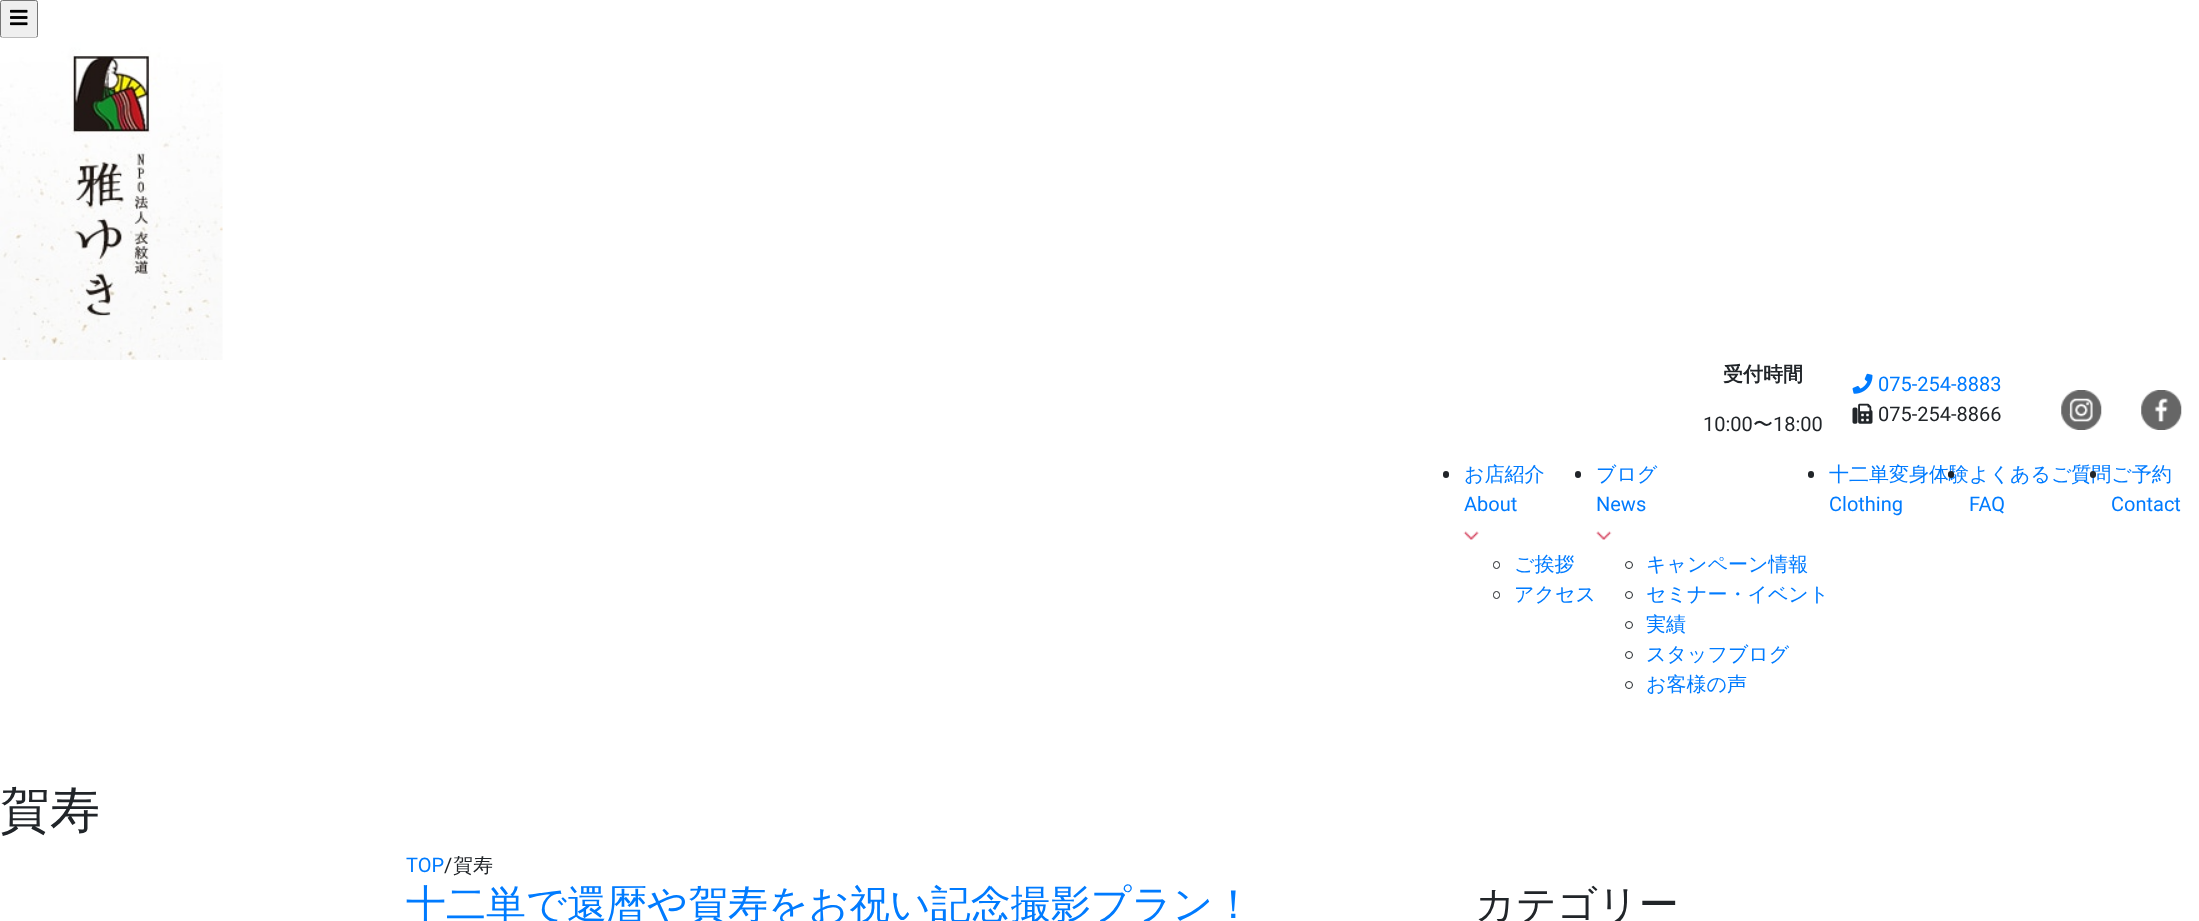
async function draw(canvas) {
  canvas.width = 2199
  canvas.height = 921
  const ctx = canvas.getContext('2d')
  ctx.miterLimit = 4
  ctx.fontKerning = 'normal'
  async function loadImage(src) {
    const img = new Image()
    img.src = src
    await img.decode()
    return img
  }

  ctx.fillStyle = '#fff'
  ctx.fillRect(0, 0, 2199, 921)
  ctx.fillStyle = '#efefef'
  ctx.beginPath()
  ctx.roundRect(0.5, 0.5, 37, 37, 2)
  ctx.fill()
  ctx.strokeStyle = '#767676'
  ctx.stroke()
  ctx.drawImage(await loadImage('image0.png'), 10, 9, 18, 17)
  ctx.drawImage(await loadImage('image1.png'), 0, 37, 223, 323)
  ctx.font = 'bold 20px WenQuanYi Zen Hei'
  ctx.fillStyle = '#212529'
  ctx.fillText('受付時間', 1723, 381)
  ctx.font = '20px Roboto'
  ctx.fillText('10:00', 1703, 431)
  ctx.font = '500 20px WenQuanYi Zen Hei'
  ctx.fillText('〜', 1753, 431)
  ctx.font = '20px Roboto'
  ctx.fillText('18:00', 1773, 431)
  ctx.drawImage(await loadImage('image2.png'), 1852, 373, 21, 21)
  ctx.fillStyle = '#007bff'
  ctx.fillText('075-254-8883', 1878, 391)
  ctx.drawImage(await loadImage('image3.png'), 1852, 403, 21, 21)
  ctx.fillStyle = '#212529'
  ctx.fillText('075-254-8866', 1878, 421)
  ctx.drawImage(await loadImage('image4.png'), 2061, 390, 41, 40)
  ctx.drawImage(await loadImage('image5.png'), 2141, 390, 41, 40)
  ctx.beginPath()
  ctx.roundRect(1443, 471, 6, 7, 3)
  ctx.fill()
  ctx.font = '500 20px WenQuanYi Zen Hei'
  ctx.fillStyle = '#007bff'
  ctx.fillText('お店紹介', 1464, 481)
  ctx.font = '20px Roboto'
  ctx.fillText('About', 1464, 511)
  ctx.drawImage(await loadImage('image6.png'), 1463, 531, 16, 9)
  ctx.beginPath()
  ctx.roundRect(1493.5, 561.5, 6, 7, 3)
  ctx.strokeStyle = '#212529'
  ctx.stroke()
  ctx.font = '500 20px WenQuanYi Zen Hei'
  ctx.fillText('ご挨拶', 1514, 571)
  ctx.beginPath()
  ctx.roundRect(1493.5, 591.5, 6, 7, 3)
  ctx.stroke()
  ctx.fillText('アクセス', 1514, 601)
  ctx.fillStyle = '#212529'
  ctx.beginPath()
  ctx.roundRect(1575, 471, 6, 7, 3)
  ctx.fill()
  ctx.fillStyle = '#007bff'
  ctx.fillText('ブログ', 1596, 481)
  ctx.font = '20px Roboto'
  ctx.fillText('News', 1596, 511)
  ctx.drawImage(await loadImage('image7.png'), 1596, 531, 16, 9)
  ctx.beginPath()
  ctx.arc(1629, 565, 3.5, 0, 2 * Math.PI)
  ctx.stroke()
  ctx.font = '500 20px WenQuanYi Zen Hei'
  ctx.fillText('キャンペーン情報', 1646, 571)
  ctx.beginPath()
  ctx.arc(1629, 595, 3.5, 0, 2 * Math.PI)
  ctx.stroke()
  ctx.fillText('セミナー・イベント', 1646, 601)
  ctx.beginPath()
  ctx.arc(1629, 625, 3.5, 0, 2 * Math.PI)
  ctx.stroke()
  ctx.fillText('実績', 1646, 631)
  ctx.beginPath()
  ctx.arc(1629, 655, 3.5, 0, 2 * Math.PI)
  ctx.stroke()
  ctx.fillText('スタッフブログ', 1646, 661)
  ctx.beginPath()
  ctx.arc(1629, 685, 3.5, 0, 2 * Math.PI)
  ctx.stroke()
  ctx.fillText('お客様の声', 1646, 691)
  ctx.fillStyle = '#212529'
  ctx.beginPath()
  ctx.roundRect(1808, 471, 6, 7, 3)
  ctx.fill()
  ctx.fillStyle = '#007bff'
  ctx.fillText('十二単変身体験よくあるご質問ご予約', 1829, 481)
  ctx.font = '20px Roboto'
  ctx.fillText('Clothing', 1829, 511)
  ctx.fillStyle = '#212529'
  ctx.beginPath()
  ctx.roundRect(1948, 471, 6, 7, 3)
  ctx.fill()
  ctx.fillStyle = '#007bff'
  ctx.fillText('FAQ', 1969, 511)
  ctx.fillStyle = '#212529'
  ctx.beginPath()
  ctx.roundRect(2090, 471, 6, 7, 3)
  ctx.fill()
  ctx.fillStyle = '#007bff'
  ctx.fillText('Contact', 2111, 511)
  ctx.font = '500 50px WenQuanYi Zen Hei'
  ctx.fillStyle = '#212529'
  ctx.fillText('賀寿', 0, 827)
  ctx.font = '20px Roboto'
  ctx.fillStyle = '#007bff'
  ctx.fillText('TOP', 406, 872)
  ctx.fillStyle = '#212529'
  ctx.fillText('/', 444, 872)
  ctx.font = '500 20px WenQuanYi Zen Hei'
  ctx.fillText('賀寿', 453, 872)
  ctx.font = '500 40px WenQuanYi Zen Hei'
  ctx.fillStyle = '#007bff'
  ctx.fillText('十二単で還暦や賀寿をお祝い記念撮影プラン！', 406, 918)
  ctx.fillStyle = '#212529'
  ctx.fillText('カテゴリー', 1475, 918)
}

draw(document.querySelector('canvas'))
